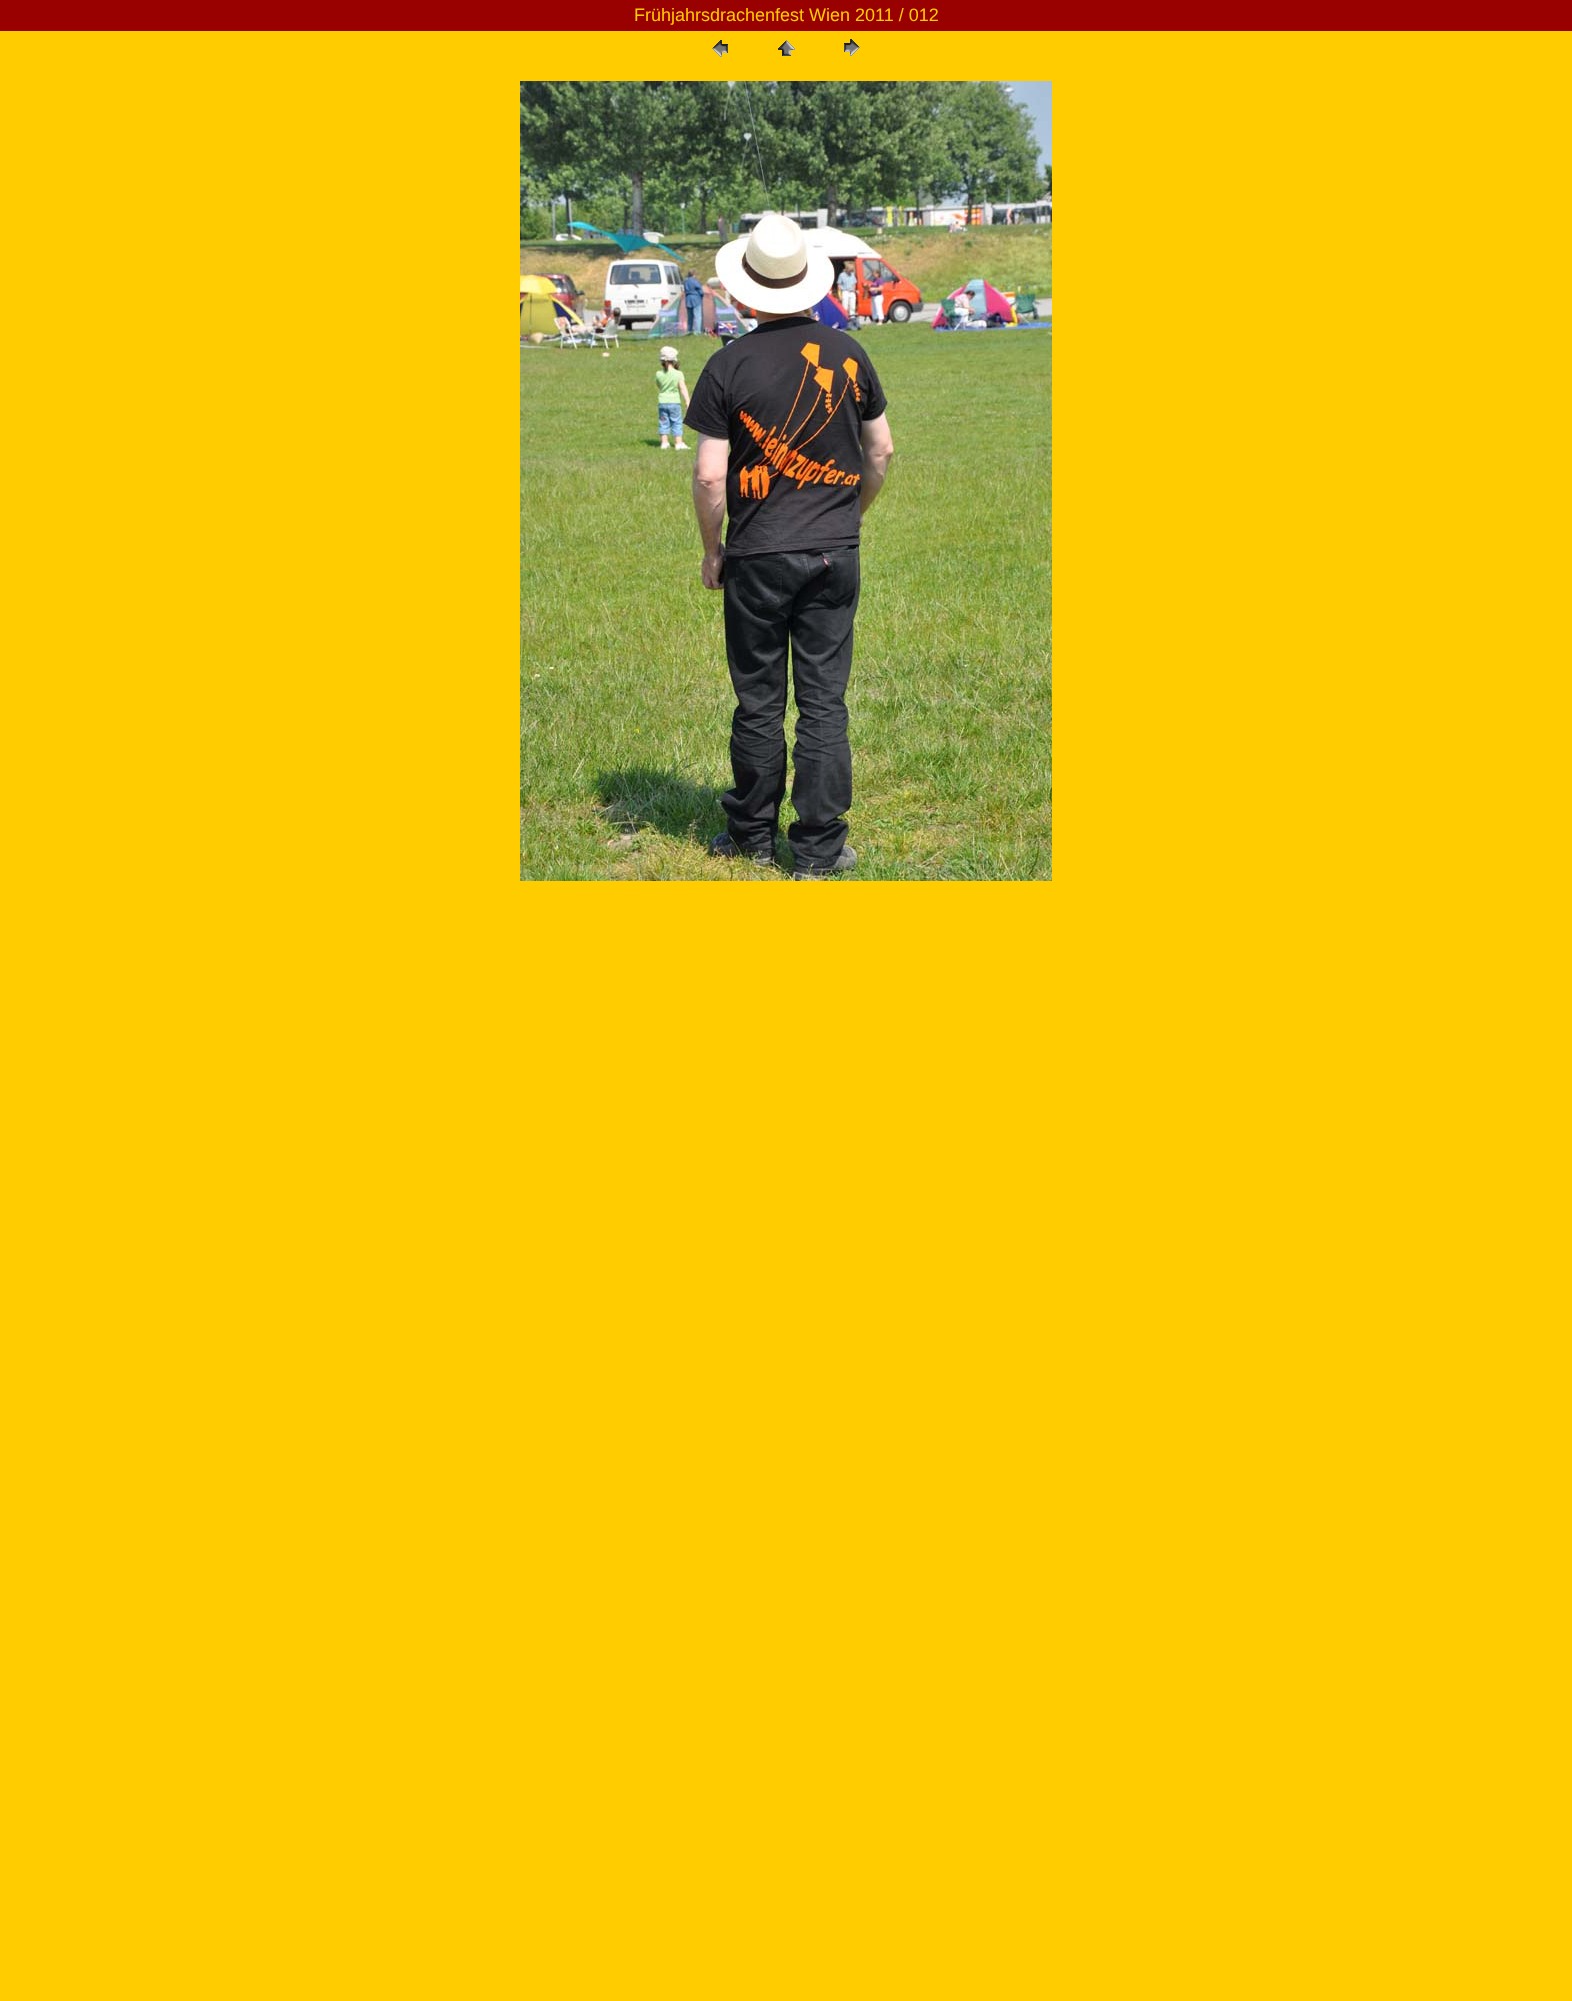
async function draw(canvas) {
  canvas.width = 1572
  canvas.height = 2001
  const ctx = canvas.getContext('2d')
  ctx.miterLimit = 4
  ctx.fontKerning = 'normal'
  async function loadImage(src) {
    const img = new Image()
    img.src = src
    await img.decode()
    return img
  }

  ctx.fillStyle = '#fc0'
  ctx.fillRect(0, 0, 1572, 2001)
  ctx.fillStyle = '#900'
  ctx.fillRect(0, 0, 1572, 31)
  ctx.font = '18px Liberation Sans'
  ctx.fillStyle = '#fc0'
  ctx.fillText('Frühjahrsdrachenfest Wien 2011 / 012', 634, 21)
  ctx.drawImage(await loadImage('image0.png'), 712, 40, 16, 17)
  ctx.drawImage(await loadImage('image1.png'), 778, 40, 17, 16)
  ctx.drawImage(await loadImage('image2.png'), 844, 39, 16, 17)
  ctx.drawImage(await loadImage('image3.png'), 520, 81, 532, 800)
}

draw(document.querySelector('canvas'))
